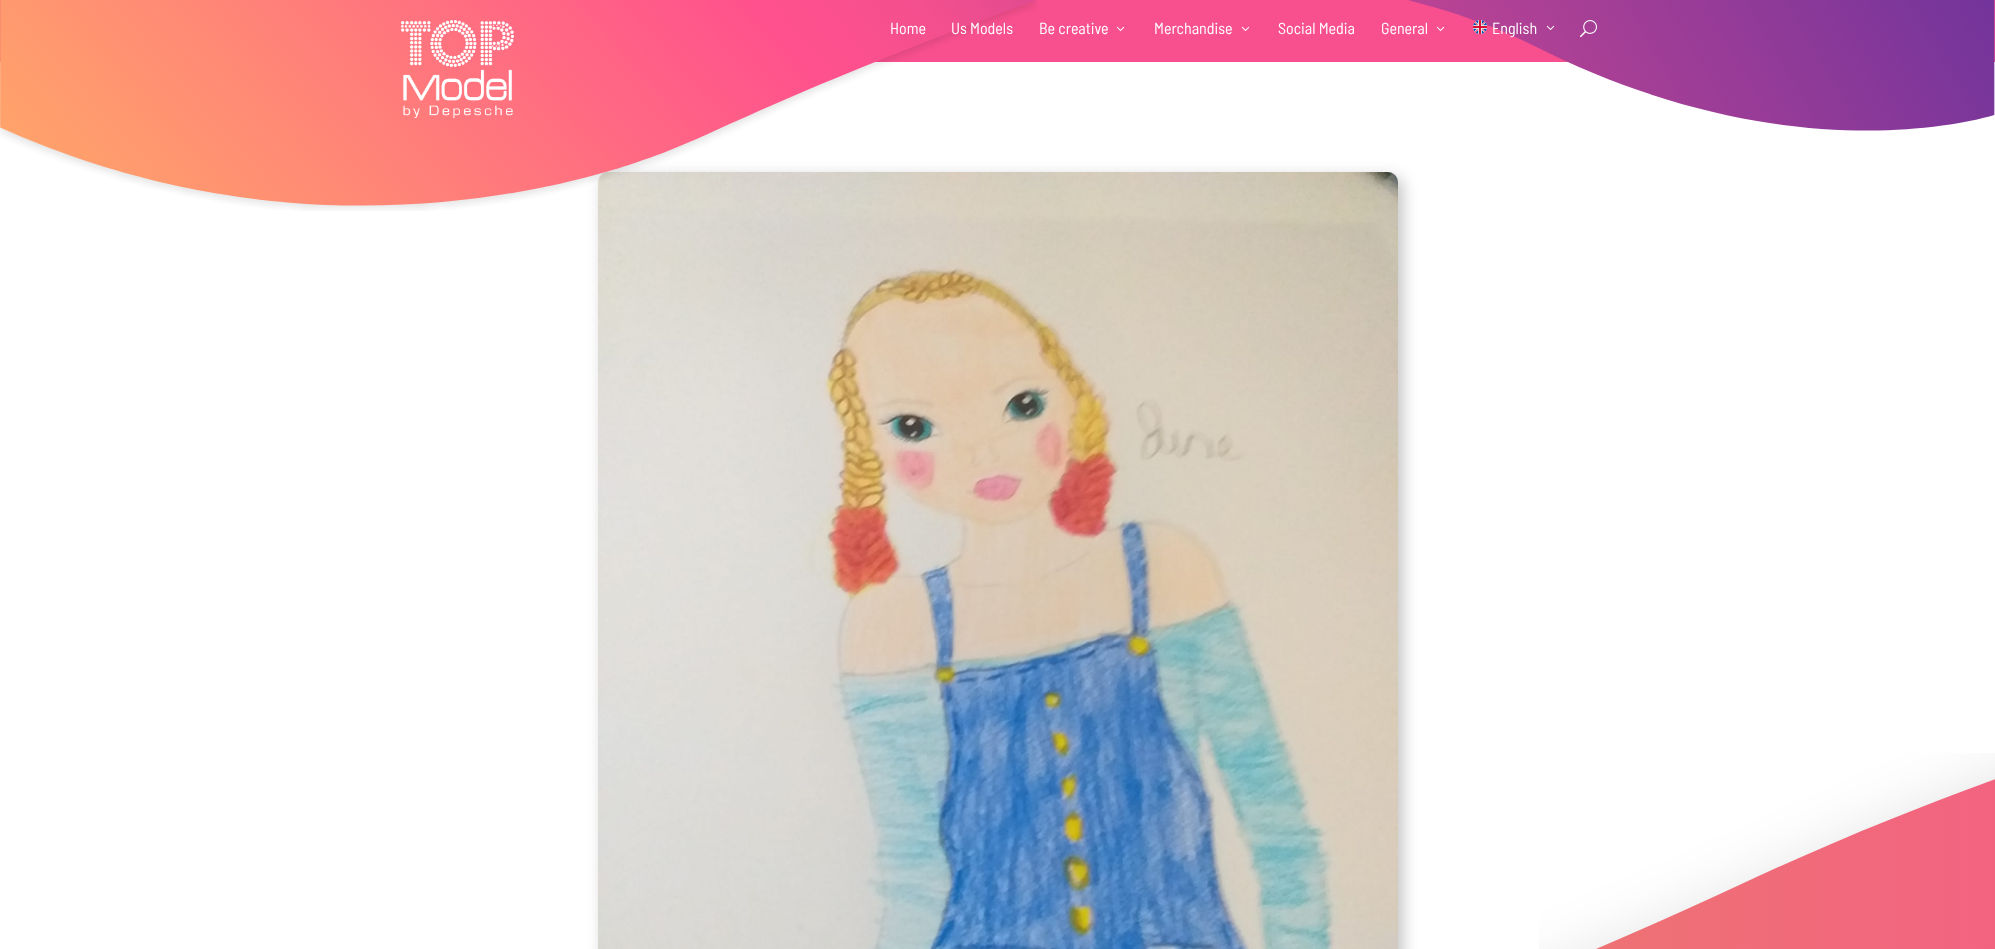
async function draw(canvas) {
  canvas.width = 1995
  canvas.height = 949
  const ctx = canvas.getContext('2d')
  ctx.miterLimit = 4
  ctx.fontKerning = 'normal'
  async function loadImage(src) {
    const img = new Image()
    img.src = src
    await img.decode()
    return img
  }

  ctx.fillStyle = '#fff'
  ctx.fillRect(0, 0, 1995, 949)
  ctx.fillStyle = '#f8508e'
  ctx.fillRect(0, 0, 1995, 62)
  ctx.fillStyle = '#0000003b'
  ctx.filter = 'blur(7.5px)'
  ctx.beginPath()
  ctx.roundRect(603, 177, 800, 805, 10)
  ctx.fill()
  ctx.filter = 'none'
  ctx.drawImage(await loadImage('image8.png'), 598, 172, 800, 777)
  ctx.drawImage(await loadImage('image0.png'), 0, 0, 1037, 211)
  ctx.drawImage(await loadImage('image1.png'), 401, 20, 113, 98)
  ctx.font = '16px Barlow Semi Condensed'
  ctx.fillStyle = '#fff'
  ctx.fillText('Home', 890, 34)
  ctx.fillText('Us Models', 951, 34)
  ctx.fillText('Be creative', 1039, 34)
  ctx.drawImage(await loadImage('image2.png'), 1116, 26, 9, 5)
  ctx.fillText('Merchandise', 1154, 34)
  ctx.drawImage(await loadImage('image2.png'), 1241, 26, 9, 5)
  ctx.fillText('Social Media', 1278, 34)
  ctx.drawImage(await loadImage('image6.png'), 1408, 0, 587, 131)
  ctx.fillText('General', 1381, 34)
  ctx.drawImage(await loadImage('image2.png'), 1436, 26, 9, 5)
  ctx.drawImage(await loadImage('image3.png'), 1473, 20, 14, 14)
  ctx.fillText('English', 1492, 34)
  ctx.drawImage(await loadImage('image4.png'), 1546, 25, 9, 5)
  ctx.drawImage(await loadImage('image5.png'), 1580, 20, 17, 18)
  ctx.drawImage(await loadImage('image7.png'), 1539, 753, 456, 196)
}

draw(document.querySelector('canvas'))
